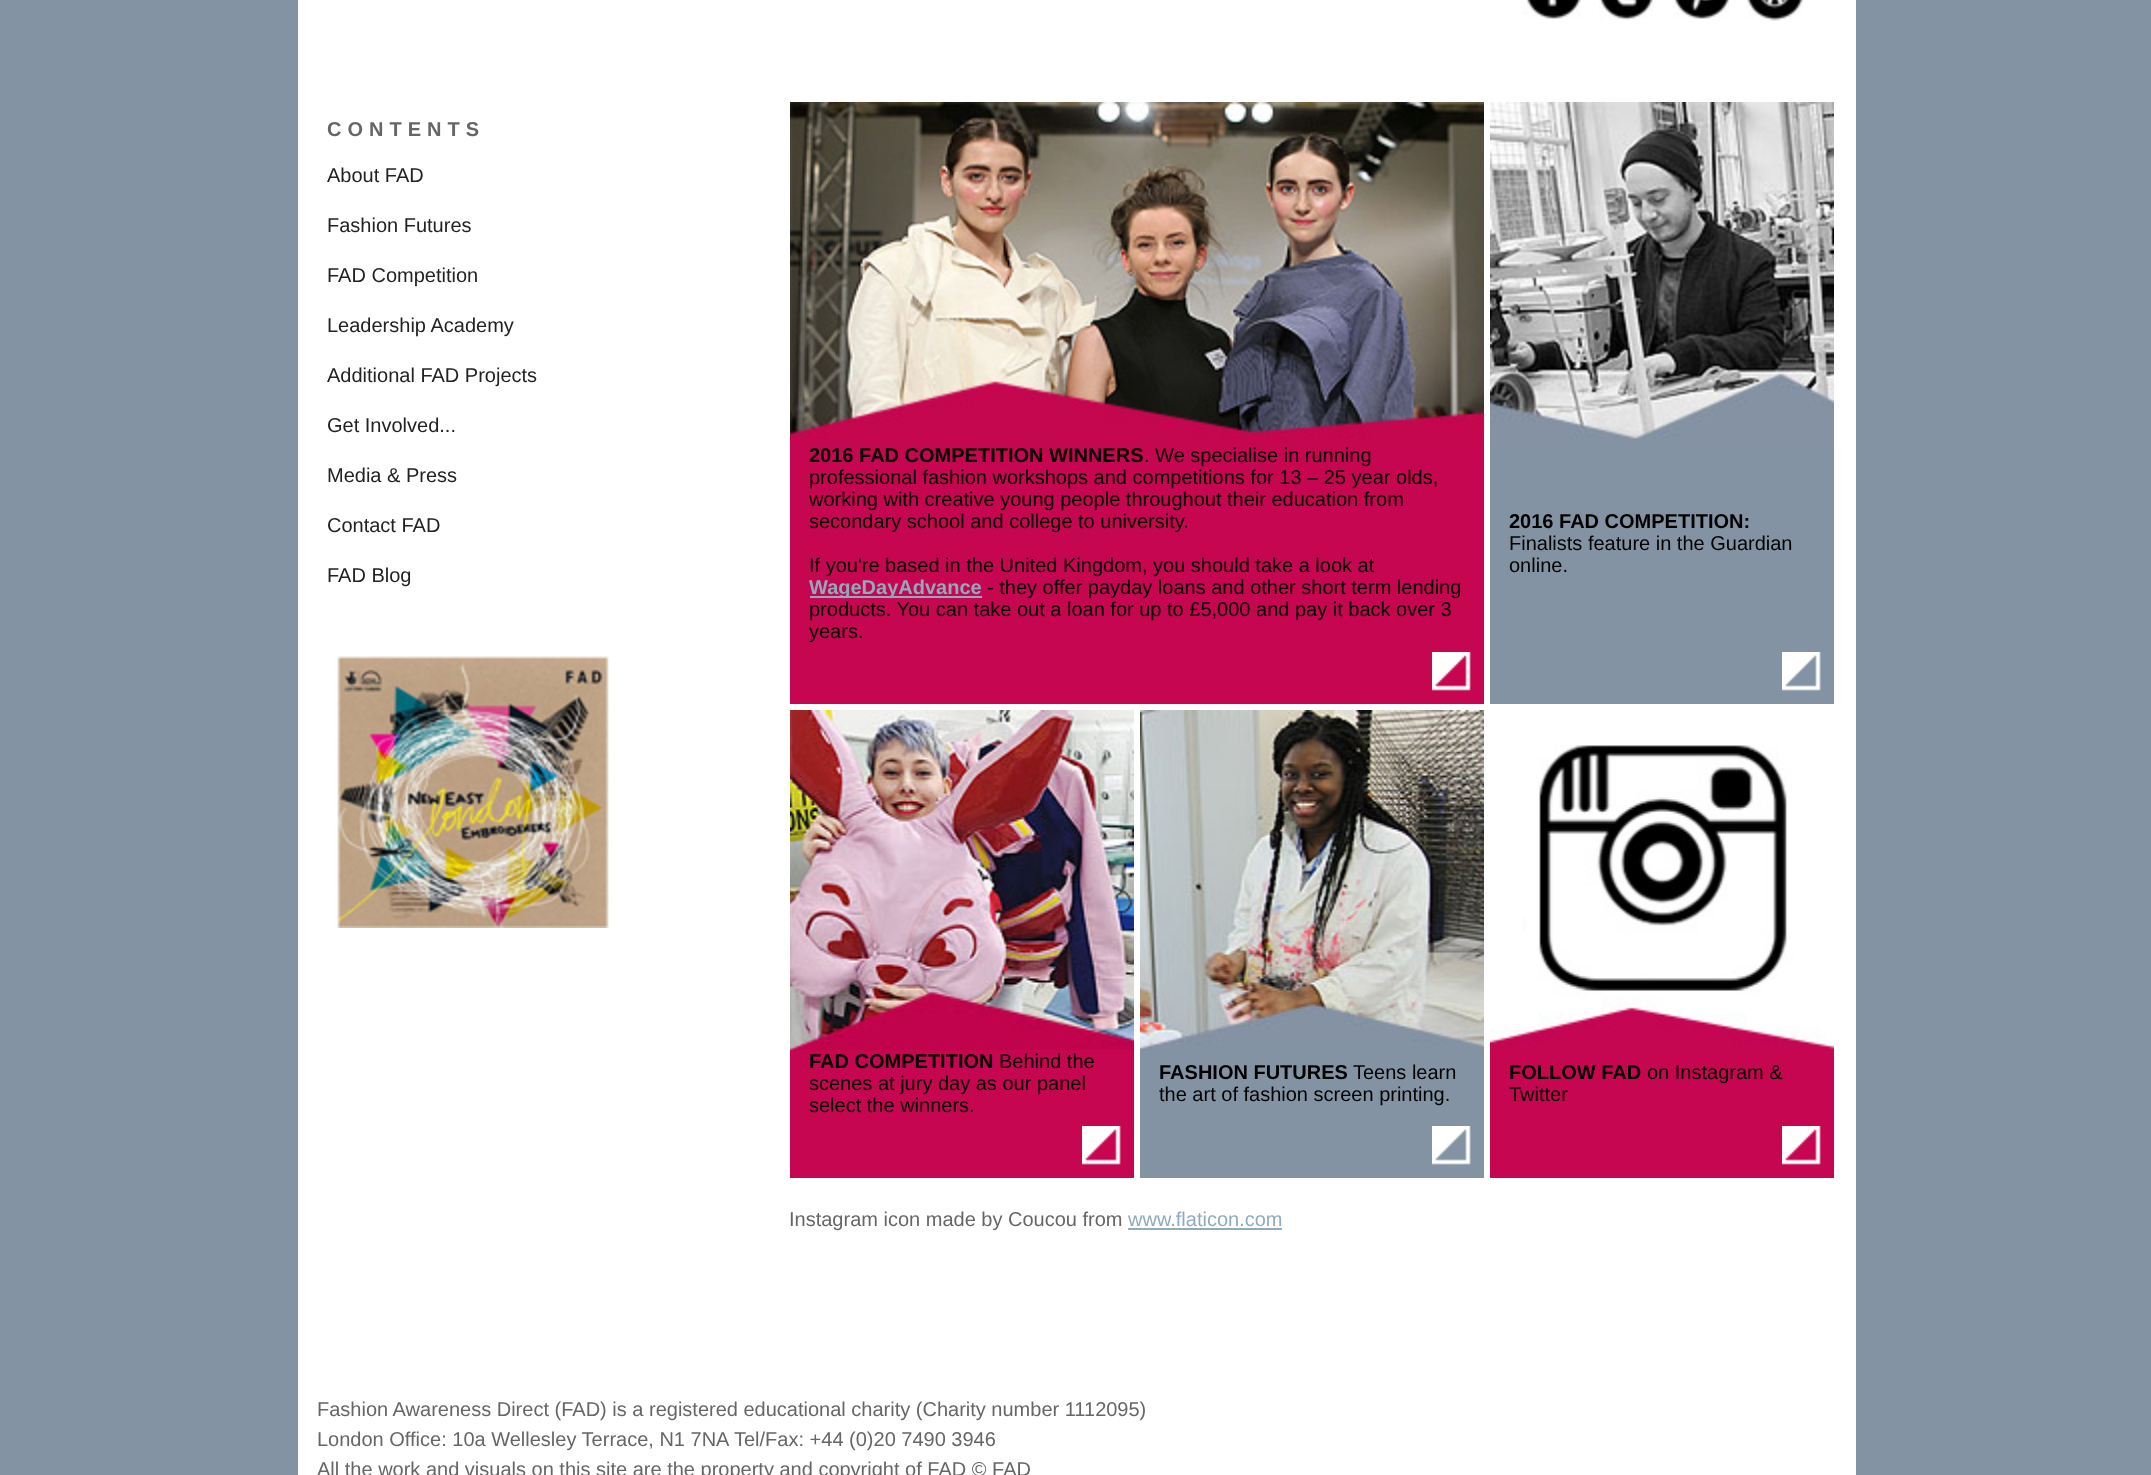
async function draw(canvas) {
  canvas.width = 2151
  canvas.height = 1475
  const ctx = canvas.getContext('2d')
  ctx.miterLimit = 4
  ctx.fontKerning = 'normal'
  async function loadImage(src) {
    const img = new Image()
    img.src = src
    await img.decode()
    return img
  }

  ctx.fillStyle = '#8393a3'
  ctx.fillRect(0, 0, 2151, 1475)
  ctx.fillStyle = '#fff'
  ctx.fillRect(298, 0, 1558, 1475)
  ctx.drawImage(await loadImage('image0.png'), 1522, 0, 59, 20)
  ctx.drawImage(await loadImage('image1.png'), 1599, 0, 54, 21)
  ctx.drawImage(await loadImage('image2.png'), 1673, 0, 57, 20)
  ctx.drawImage(await loadImage('image3.png'), 1747, 0, 56, 21)
  ctx.letterSpacing = '6px'
  ctx.font = 'bold 20px Liberation Sans'
  ctx.fillStyle = '#666'
  ctx.fillText('CONTENTS', 327, 136)
  ctx.letterSpacing = '0px'
  ctx.font = '20px Liberation Sans'
  ctx.fillStyle = '#222'
  ctx.fillText('About FAD', 327, 182)
  ctx.fillText('Fashion Futures', 327, 232)
  ctx.fillText('FAD Competition', 327, 282)
  ctx.fillText('Leadership Academy', 327, 332)
  ctx.fillText('Additional FAD Projects', 327, 382)
  ctx.fillText('Get Involved...', 327, 432)
  ctx.fillText('Media & Press', 327, 482)
  ctx.fillText('Contact FAD', 327, 532)
  ctx.fillText('FAD Blog', 327, 582)
  ctx.drawImage(await loadImage('image4.png'), 334, 656, 276, 272)
  ctx.drawImage(await loadImage('image5.png'), 790, 102, 694, 342)
  ctx.drawImage(await loadImage('image6.png'), 1490, 102, 344, 342)
  ctx.fillStyle = '#c60651'
  ctx.fillRect(790, 444, 694, 260)
  ctx.font = 'bold 20px Liberation Sans'
  ctx.fillStyle = '#000'
  ctx.fillText('2016 FAD COMPETITION WINNERS', 809, 462)
  ctx.font = '20px Liberation Sans'
  ctx.fillText('. We specialise in running', 1144, 462)
  ctx.fillText('professional fashion workshops and competitions for 13 – 25 year olds,', 809, 484)
  ctx.fillText('working with creative young people throughout their education from', 809, 506)
  ctx.fillText('secondary school and college to university.', 809, 528)
  ctx.fillText('If you\'re based in the United Kingdom, you should take a look at', 809, 572)
  ctx.fillStyle = '#8fabbe'
  ctx.fillRect(810, 596, 172, 2)
  ctx.font = 'bold 20px Liberation Sans'
  ctx.fillText('WageDayAdvance', 809, 594)
  ctx.font = '20px Liberation Sans'
  ctx.fillStyle = '#000'
  ctx.fillText('- they offer payday loans and other short term lending', 987, 594)
  ctx.fillText('products. You can take out a loan for up to £5,000 and pay it back over 3', 809, 616)
  ctx.fillText('years.', 809, 638)
  ctx.fillStyle = '#8393a3'
  ctx.fillRect(1490, 444, 344, 260)
  ctx.font = 'bold 20px Liberation Sans'
  ctx.fillStyle = '#000'
  ctx.fillText('2016 FAD COMPETITION:', 1509, 528)
  ctx.font = '20px Liberation Sans'
  ctx.fillText('Finalists feature in the Guardian', 1509, 550)
  ctx.fillText('online.', 1509, 572)
  ctx.drawImage(await loadImage('image7.png'), 1432, 652, 39, 39)
  ctx.drawImage(await loadImage('image8.png'), 1782, 652, 39, 39)
  ctx.drawImage(await loadImage('image9.png'), 790, 710, 344, 340)
  ctx.drawImage(await loadImage('image10.png'), 1140, 710, 344, 340)
  ctx.drawImage(await loadImage('image11.png'), 1490, 745, 344, 305)
  ctx.fillStyle = '#c60651'
  ctx.fillRect(790, 1050, 344, 128)
  ctx.font = 'bold 20px Liberation Sans'
  ctx.fillStyle = '#000'
  ctx.fillText('FAD COMPETITION', 809, 1068)
  ctx.font = '20px Liberation Sans'
  ctx.fillText('Behind the', 999, 1068)
  ctx.fillText('scenes at jury day as our panel', 809, 1090)
  ctx.fillText('select the winners.', 809, 1112)
  ctx.fillStyle = '#8393a3'
  ctx.fillRect(1140, 1050, 344, 128)
  ctx.font = 'bold 20px Liberation Sans'
  ctx.fillStyle = '#000'
  ctx.fillText('FASHION FUTURES', 1159, 1079)
  ctx.font = '20px Liberation Sans'
  ctx.fillText('Teens learn', 1353, 1079)
  ctx.fillText('the art of fashion screen printing.', 1159, 1101)
  ctx.fillStyle = '#c60651'
  ctx.fillRect(1490, 1050, 344, 128)
  ctx.font = 'bold 20px Liberation Sans'
  ctx.fillStyle = '#000'
  ctx.fillText('FOLLOW FAD', 1509, 1079)
  ctx.font = '20px Liberation Sans'
  ctx.fillText('on Instagram &', 1647, 1079)
  ctx.fillText('Twitter', 1509, 1101)
  ctx.drawImage(await loadImage('image7.png'), 1082, 1126, 39, 39)
  ctx.drawImage(await loadImage('image8.png'), 1432, 1126, 39, 39)
  ctx.drawImage(await loadImage('image7.png'), 1782, 1126, 39, 39)
  ctx.fillStyle = '#666'
  ctx.fillText('Instagram icon made by Coucou from', 789, 1226)
  ctx.fillStyle = '#8fabbe'
  ctx.fillText('www.flaticon.com', 1128, 1226)
  ctx.fillRect(1128, 1228, 154, 2)
  ctx.fillStyle = '#666'
  ctx.fillText('Fashion Awareness Direct (FAD) is a registered educational charity (Charity number 1112095)', 317, 1416)
  ctx.fillText('London Office: 10a Wellesley Terrace, N1 7NA', 317, 1446)
  ctx.fillText('Tel/Fax: +44 (0)20 7490 3946', 734, 1446)
  ctx.fillText('All the work and visuals on this site are the property and copyright of FAD © FAD', 317, 1476)
}

draw(document.querySelector('canvas'))
